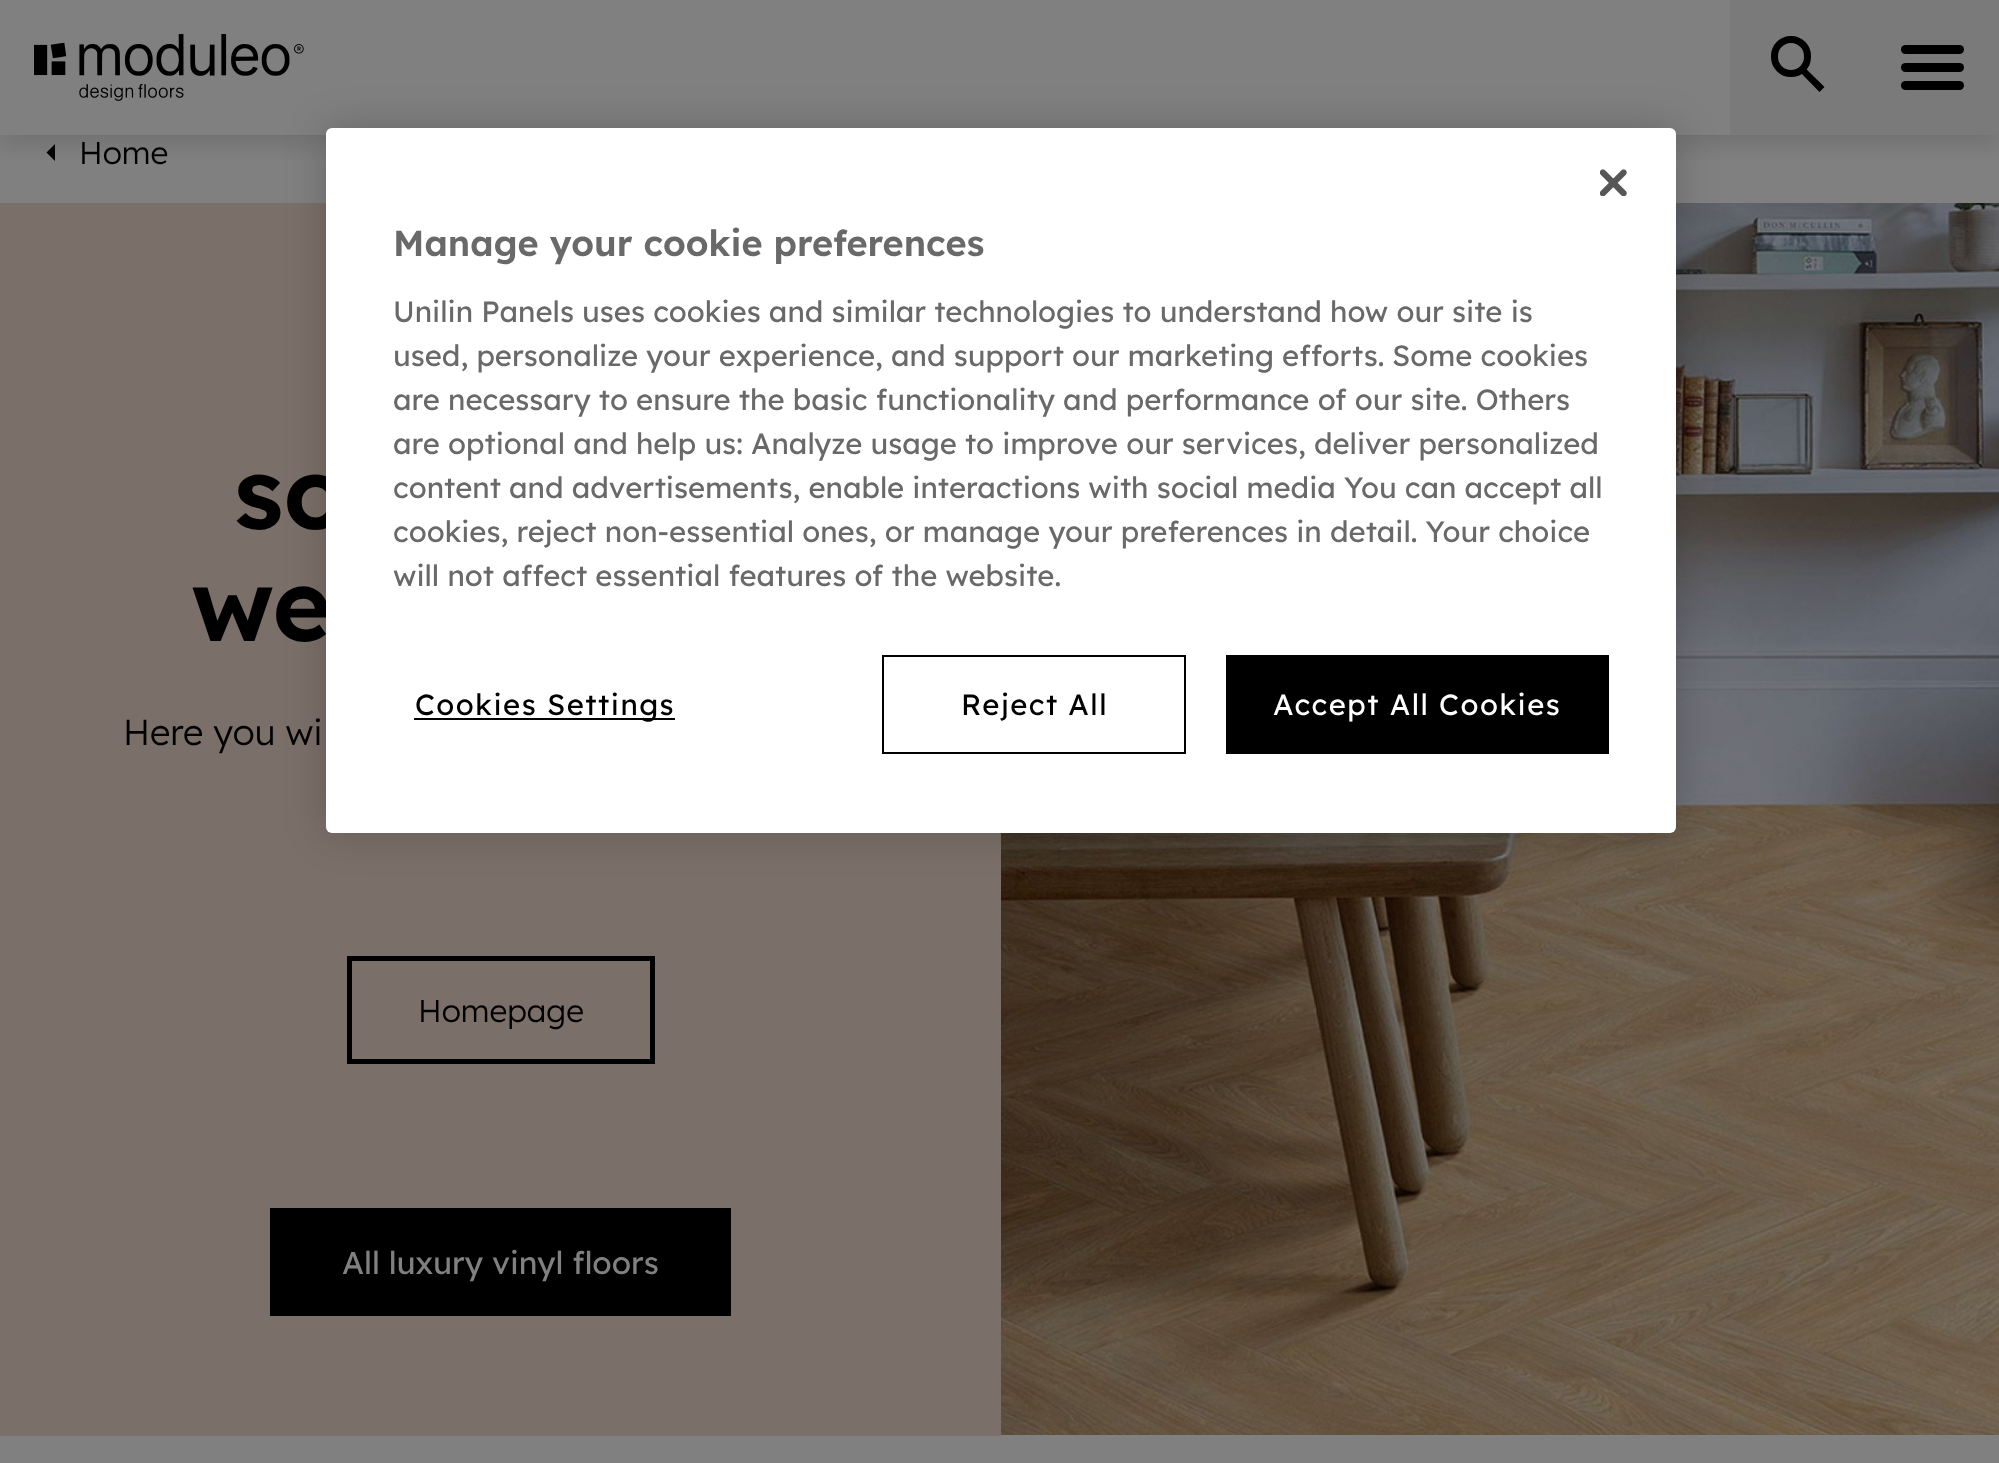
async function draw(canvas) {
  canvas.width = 1999
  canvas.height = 1463
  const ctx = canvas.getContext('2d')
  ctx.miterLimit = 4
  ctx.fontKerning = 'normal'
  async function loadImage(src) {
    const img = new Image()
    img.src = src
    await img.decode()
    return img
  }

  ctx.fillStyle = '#808080'
  ctx.fillRect(0, 0, 1999, 1463)
  ctx.fillStyle = '#000'
  ctx.beginPath()
  ctx.moveTo(46.5, 152.5)
  ctx.lineTo(55, 161)
  ctx.lineTo(55, 144)
  ctx.closePath()
  ctx.fill()
  ctx.save()
  ctx.beginPath()
  ctx.rect(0, 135, 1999, 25)
  ctx.clip()
  ctx.fillStyle = '#3a373733'
  ctx.filter = 'blur(11px)'
  ctx.beginPath()
  ctx.rect(0, 11, 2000, 135)
  ctx.fill()
  ctx.filter = 'none'
  ctx.restore()
  ctx.drawImage(await loadImage('image0.png'), 34, 34, 270, 67)
  ctx.fillStyle = '#7a7a7a'
  ctx.fillRect(1730, 0, 269, 135)
  ctx.fillStyle = '#000'
  ctx.beginPath()
  ctx.moveTo(1800.5, 63.5)
  ctx.lineTo(1824.5, 87)
  ctx.lineTo(1819.5, 92)
  ctx.lineTo(1796, 68)
  ctx.closePath()
  ctx.fill()
  ctx.fillStyle = '#7a7a7a'
  ctx.beginPath()
  ctx.roundRect(1774.5, 39.5, 33, 34, 16.5)
  ctx.fill()
  ctx.strokeStyle = '#000'
  ctx.lineWidth = 7
  ctx.stroke()
  ctx.fillStyle = '#000'
  ctx.beginPath()
  ctx.roundRect(1901, 45, 63, 9, 4.5)
  ctx.fill()
  ctx.beginPath()
  ctx.roundRect(1901, 63, 63, 9, 4.5)
  ctx.fill()
  ctx.beginPath()
  ctx.roundRect(1901, 81, 63, 9, 4.5)
  ctx.fill()
  ctx.font = '300 31.5px Lexend Deca'
  ctx.fillText('Home', 79, 164)
  ctx.fillStyle = '#7b6f69'
  ctx.fillRect(0, 203, 1001, 1233)
  ctx.font = '600 101px Lexend Deca'
  ctx.fillStyle = '#000'
  ctx.fillText('so', 234, 529)
  ctx.fillText('we', 191, 641)
  ctx.font = '300 36px Lexend Deca'
  ctx.fillText('Here you wi', 123, 745)
  ctx.lineWidth = 5
  ctx.strokeRect(349.5, 958.5, 303, 103)
  ctx.font = '300 31.5px Lexend Deca'
  ctx.fillText('Homepage', 418, 1022)
  ctx.fillRect(270, 1208, 461, 108)
  ctx.font = '31.5px Lexend Deca'
  ctx.fillStyle = '#808080'
  ctx.fillText('All luxury vinyl floors', 342, 1274)
  ctx.drawImage(await loadImage('image1.png'), 1001, 203, 998, 1232)
  ctx.fillStyle = '#00000033'
  ctx.filter = 'blur(20px)'
  ctx.beginPath()
  ctx.roundRect(326, 128, 1350, 705, 6)
  ctx.fill()
  ctx.filter = 'none'
  ctx.fillStyle = '#fff'
  ctx.beginPath()
  ctx.roundRect(326, 128, 1350, 705, 6)
  ctx.fill()
  ctx.drawImage(await loadImage('image2.png'), 1600, 169, 27, 27)
  ctx.font = '600 36px Lexend Deca'
  ctx.fillStyle = '#696969'
  ctx.fillText('Manage your cookie preferences', 393, 256)
  ctx.font = '29.25px Lexend Deca'
  ctx.fillText('Unilin Panels uses cookies and similar technologies to understand how our site is', 393, 322)
  ctx.fillText('used, personalize your experience, and support our marketing efforts.', 393, 366)
  ctx.fillText('Some cookies', 1392, 366)
  ctx.fillText('are necessary to ensure the basic functionality and performance of our site. Others', 393, 410)
  ctx.fillText('are optional and help us: Analyze usage to improve our services, deliver personalized', 393, 454)
  ctx.fillText('content and advertisements, enable interactions with social media', 393, 498)
  ctx.fillText('You can accept all', 1344, 498)
  ctx.fillText('cookies, reject non-essential ones, or manage your preferences in detail. Your choice', 393, 542)
  ctx.fillText('will not affect essential features of the website.', 393, 586)
  ctx.fillStyle = '#000'
  ctx.fillRect(414, 718, 261, 2)
  ctx.letterSpacing = '1.5px'
  ctx.fillText('Cookies Settings', 415, 715)
  ctx.lineWidth = 2
  ctx.strokeRect(883, 656, 302, 97)
  ctx.fillText('Reject All', 961, 715)
  ctx.fillRect(1226, 655, 383, 99)
  ctx.fillStyle = '#fff'
  ctx.fillText('Accept All Cookies', 1273, 715)
}

draw(document.querySelector('canvas'))
